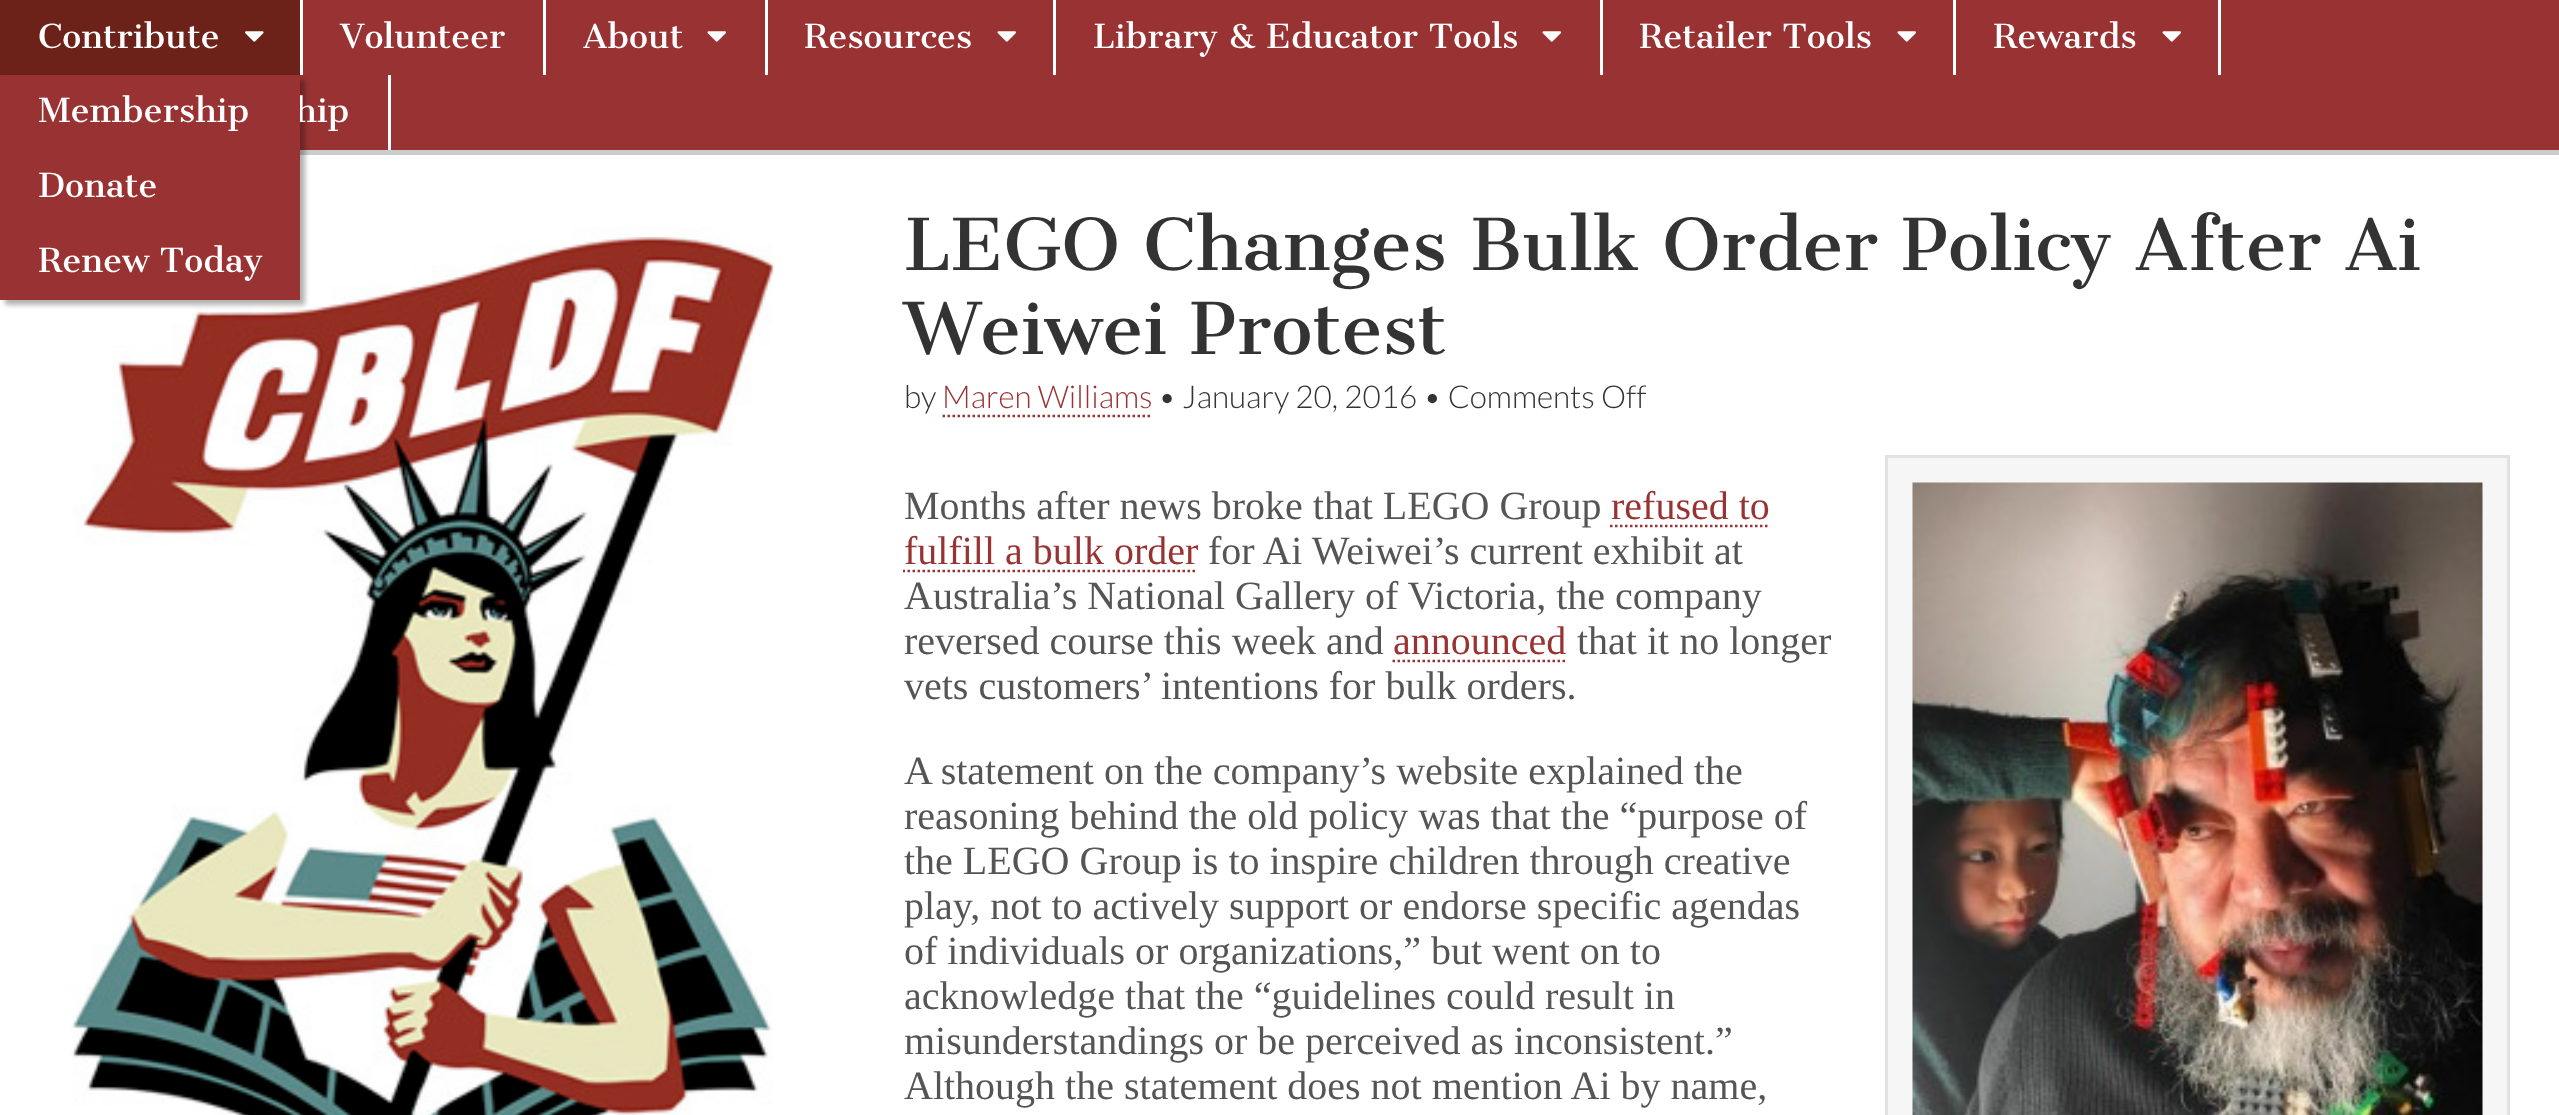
async function draw(canvas) {
  canvas.width = 2559
  canvas.height = 1115
  const ctx = canvas.getContext('2d')
  ctx.miterLimit = 4
  ctx.fontKerning = 'normal'
  async function loadImage(src) {
    const img = new Image()
    img.src = src
    await img.decode()
    return img
  }

  ctx.fillStyle = '#fff'
  ctx.fillRect(0, 0, 2559, 1115)
  ctx.fillStyle = '#933'
  ctx.fillRect(300, 0, 2259, 150)
  ctx.fillStyle = '#6c2219'
  ctx.fillRect(0, 0, 300, 75)
  ctx.fillStyle = '#fff'
  ctx.fillRect(300, 0, 3, 75)
  ctx.font = '32.5px Cantata One'
  ctx.fillText('Contribute', 38, 48)
  ctx.drawImage(await loadImage('image0.png'), 245, 31, 19, 11)
  ctx.fillStyle = '#ccc'
  ctx.fillRect(300, 150, 2259, 5)
  ctx.drawImage(await loadImage('image2.png'), 71, 226, 704, 889)
  ctx.fillStyle = '#0000004d'
  ctx.filter = 'blur(2.5px)'
  ctx.beginPath()
  ctx.rect(5, 80, 300, 225)
  ctx.fill()
  ctx.filter = 'none'
  ctx.fillStyle = '#fff'
  ctx.fillText('hip', 295, 122)
  ctx.fillStyle = '#933'
  ctx.fillRect(0, 75, 300, 225)
  ctx.fillStyle = '#fff'
  ctx.fillText('Membership', 38, 122)
  ctx.fillText('Donate', 38, 197)
  ctx.fillText('Renew Today', 38, 272)
  ctx.fillRect(543, 0, 3, 75)
  ctx.fillText('Volunteer', 340, 48)
  ctx.fillRect(765, 0, 3, 75)
  ctx.fillText('About', 583, 48)
  ctx.drawImage(await loadImage('image1.png'), 707, 31, 20, 11)
  ctx.fillRect(1053, 0, 3, 75)
  ctx.fillText('Resources', 804, 48)
  ctx.drawImage(await loadImage('image1.png'), 997, 31, 20, 11)
  ctx.fillRect(1600, 0, 3, 75)
  ctx.fillText('Library & Educator Tools', 1093, 48)
  ctx.drawImage(await loadImage('image1.png'), 1542, 31, 20, 11)
  ctx.fillRect(1953, 0, 3, 75)
  ctx.fillText('Retailer Tools', 1639, 48)
  ctx.drawImage(await loadImage('image1.png'), 1897, 31, 20, 11)
  ctx.fillRect(2218, 0, 3, 75)
  ctx.fillText('Rewards', 1993, 48)
  ctx.drawImage(await loadImage('image1.png'), 2162, 31, 20, 11)
  ctx.fillRect(388, 75, 3, 75)
  ctx.font = '70px Cantata One'
  ctx.fillStyle = '#333'
  ctx.fillText('LEGO Changes Bulk Order Policy After Ai', 904, 270)
  ctx.fillText('Weiwei Protest', 904, 354)
  ctx.font = '300 31.5px Lato'
  ctx.fillText('by', 904, 408)
  ctx.fillStyle = '#933'
  ctx.fillText('Maren Williams', 942, 408)
  ctx.beginPath()
  ctx.moveTo(942.5, 416)
  ctx.lineTo(1152.5, 416)
  ctx.strokeStyle = '#933'
  ctx.lineWidth = 2.5
  ctx.setLineDash([2.5, 2.5])
  ctx.stroke()
  ctx.fillStyle = '#333'
  ctx.fillText('• January 20, 2016 • Comments Off', 1158, 408)
  ctx.font = '40px Liberation Serif'
  ctx.fillStyle = '#555'
  ctx.fillText('Months after news broke that LEGO Group', 904, 519)
  ctx.fillStyle = '#933'
  ctx.fillText('refused to', 1611, 519)
  ctx.beginPath()
  ctx.moveTo(1610, 526)
  ctx.lineTo(1770, 526)
  ctx.stroke()
  ctx.fillText('fulfill a bulk order', 904, 564)
  ctx.save()
  ctx.beginPath()
  ctx.rect(903, 443, 1607, 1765)
  ctx.clip()
  ctx.beginPath()
  ctx.moveTo(902.5, 571)
  ctx.lineTo(1197.5, 571)
  ctx.stroke()
  ctx.restore()
  ctx.fillStyle = '#555'
  ctx.fillText('for Ai Weiwei’s current exhibit at', 1208, 564)
  ctx.fillText('Australia’s National Gallery of Victoria, the company', 904, 609)
  ctx.fillText('reversed course this week and', 904, 654)
  ctx.fillStyle = '#933'
  ctx.fillText('announced', 1393, 654)
  ctx.beginPath()
  ctx.moveTo(1392.5, 661)
  ctx.lineTo(1567.5, 661)
  ctx.stroke()
  ctx.fillStyle = '#555'
  ctx.fillText('that it no longer', 1577, 654)
  ctx.fillText('vets customers’ intentions for bulk orders.', 904, 699)
  ctx.fillStyle = '#f6f6f6'
  ctx.beginPath()
  ctx.rect(1886.5, 456.5, 622, 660)
  ctx.fill()
  ctx.strokeStyle = '#e2e2e2'
  ctx.lineWidth = 3
  ctx.setLineDash([])
  ctx.stroke()
  ctx.drawImage(await loadImage('image3.png'), 1912, 482, 571, 633)
  ctx.fillStyle = '#555'
  ctx.fillText('A statement on the company’s website explained the', 904, 784)
  ctx.fillText('reasoning behind the old policy was that the “purpose of', 904, 829)
  ctx.fillText('the LEGO Group is to inspire children through creative', 904, 874)
  ctx.fillText('play, not to actively support or endorse specific agendas', 904, 919)
  ctx.fillText('of individuals or organizations,” but went on to', 904, 964)
  ctx.fillText('acknowledge that the “guidelines could result in', 904, 1009)
  ctx.fillText('misunderstandings or be perceived as inconsistent.”', 904, 1054)
  ctx.fillText('Although the statement does not mention Ai by name,', 904, 1099)
}

draw(document.querySelector('canvas'))
